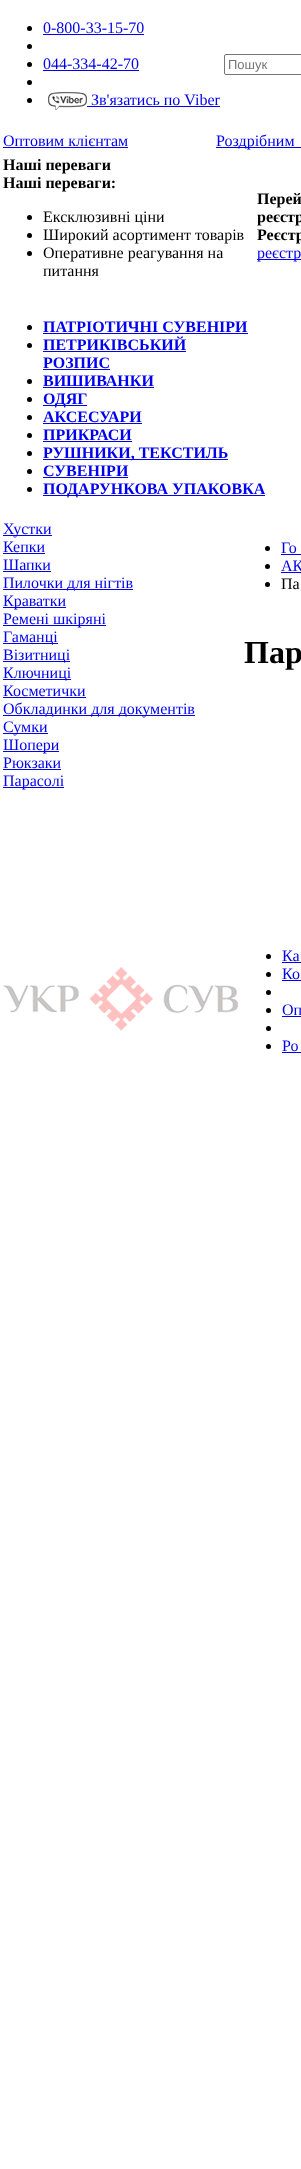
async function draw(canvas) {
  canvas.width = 301
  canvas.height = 2169
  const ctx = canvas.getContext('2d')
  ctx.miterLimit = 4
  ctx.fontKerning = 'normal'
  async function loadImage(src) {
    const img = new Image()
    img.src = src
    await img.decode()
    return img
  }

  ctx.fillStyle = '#fff'
  ctx.fillRect(0, 0, 301, 2169)
  ctx.fillStyle = '#000'
  ctx.beginPath()
  ctx.arc(29.5, 28.5, 2.5, 0, 2 * Math.PI)
  ctx.fill()
  ctx.font = '16px Liberation Serif'
  ctx.fillStyle = '#00e'
  ctx.fillText('0-800-33-15-70', 43, 33)
  ctx.fillRect(43, 34, 101, 1)
  ctx.fillStyle = '#000'
  ctx.beginPath()
  ctx.arc(29.5, 46.5, 2.5, 0, 2 * Math.PI)
  ctx.fill()
  ctx.beginPath()
  ctx.arc(29.5, 64.5, 2.5, 0, 2 * Math.PI)
  ctx.fill()
  ctx.fillStyle = '#00e'
  ctx.fillText('044-334-42-70', 43, 69)
  ctx.fillRect(43, 70, 96, 1)
  ctx.fillStyle = '#000'
  ctx.beginPath()
  ctx.arc(29.5, 82.5, 2.5, 0, 2 * Math.PI)
  ctx.fill()
  ctx.beginPath()
  ctx.arc(29.5, 100.5, 2.5, 0, 2 * Math.PI)
  ctx.fill()
  ctx.drawImage(await loadImage('image0.png'), 48, 92, 39, 18)
  ctx.fillStyle = '#00e'
  ctx.fillText('Зв\'язатись по Viber', 91, 105)
  ctx.fillRect(87, 106, 133, 1)
  ctx.beginPath()
  ctx.roundRect(224.5, 54.5, 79, 20, 1.5)
  ctx.strokeStyle = '#767676'
  ctx.stroke()
  ctx.font = '13px Liberation Sans'
  ctx.fillStyle = '#757575'
  ctx.fillText('Пошук', 228, 69)
  ctx.font = '16px Liberation Serif'
  ctx.fillStyle = '#00e'
  ctx.fillText('Оптовим клієнтам', 3, 146)
  ctx.fillRect(3, 147, 125, 1)
  ctx.fillRect(216, 147, 85, 1)
  ctx.fillText('Роздрібним', 216, 146)
  ctx.font = 'bold 16px Liberation Serif'
  ctx.fillStyle = '#000'
  ctx.fillText('Наші переваги', 3, 170)
  ctx.fillText('Наші переваги:', 3, 188)
  ctx.beginPath()
  ctx.arc(29.5, 217.5, 2.5, 0, 2 * Math.PI)
  ctx.fill()
  ctx.font = '16px Liberation Serif'
  ctx.fillText('Ексклюзивні ціни', 43, 222)
  ctx.beginPath()
  ctx.arc(29.5, 235.5, 2.5, 0, 2 * Math.PI)
  ctx.fill()
  ctx.fillText('Широкий асортимент товарів', 43, 240)
  ctx.beginPath()
  ctx.arc(29.5, 253.5, 2.5, 0, 2 * Math.PI)
  ctx.fill()
  ctx.fillText('Оперативне реагування на', 43, 258)
  ctx.fillText('питання', 43, 276)
  ctx.font = 'bold 16px Liberation Serif'
  ctx.fillText('Перей', 257, 204)
  ctx.fillText('реєстр', 257, 222)
  ctx.fillText('Реєстр', 257, 240)
  ctx.fillStyle = '#00e'
  ctx.fillRect(257, 259, 44, 1)
  ctx.font = '16px Liberation Serif'
  ctx.fillText('реєстр', 257, 258)
  ctx.fillStyle = '#000'
  ctx.beginPath()
  ctx.arc(29.5, 327.5, 2.5, 0, 2 * Math.PI)
  ctx.fill()
  ctx.font = 'bold 16px Liberation Serif'
  ctx.fillStyle = '#00e'
  ctx.fillText('ПАТРІОТИЧНІ СУВЕНІРИ', 43, 332)
  ctx.fillRect(43, 333, 205, 1)
  ctx.fillStyle = '#000'
  ctx.beginPath()
  ctx.arc(29.5, 345.5, 2.5, 0, 2 * Math.PI)
  ctx.fill()
  ctx.fillStyle = '#00e'
  ctx.fillText('ПЕТРИКІВСЬКИЙ', 43, 350)
  ctx.fillRect(43, 351, 143, 1)
  ctx.fillText('РОЗПИС', 43, 368)
  ctx.fillRect(43, 369, 67, 1)
  ctx.fillStyle = '#000'
  ctx.beginPath()
  ctx.arc(29.5, 381.5, 2.5, 0, 2 * Math.PI)
  ctx.fill()
  ctx.fillStyle = '#00e'
  ctx.fillText('ВИШИВАНКИ', 43, 386)
  ctx.fillRect(43, 387, 111, 1)
  ctx.fillStyle = '#000'
  ctx.beginPath()
  ctx.arc(29.5, 399.5, 2.5, 0, 2 * Math.PI)
  ctx.fill()
  ctx.fillStyle = '#00e'
  ctx.fillRect(43, 405, 44, 1)
  ctx.fillText('ОДЯГ', 43, 404)
  ctx.fillStyle = '#000'
  ctx.beginPath()
  ctx.arc(29.5, 417.5, 2.5, 0, 2 * Math.PI)
  ctx.fill()
  ctx.fillStyle = '#00e'
  ctx.fillText('АКСЕСУАРИ', 43, 422)
  ctx.fillRect(43, 423, 99, 1)
  ctx.fillStyle = '#000'
  ctx.beginPath()
  ctx.arc(29.5, 435.5, 2.5, 0, 2 * Math.PI)
  ctx.fill()
  ctx.fillStyle = '#00e'
  ctx.fillText('ПРИКРАСИ', 43, 440)
  ctx.fillRect(43, 441, 89, 1)
  ctx.fillStyle = '#000'
  ctx.beginPath()
  ctx.arc(29.5, 453.5, 2.5, 0, 2 * Math.PI)
  ctx.fill()
  ctx.fillStyle = '#00e'
  ctx.fillRect(43, 459, 185, 1)
  ctx.fillText('РУШНИКИ, ТЕКСТИЛЬ', 43, 458)
  ctx.fillStyle = '#000'
  ctx.beginPath()
  ctx.arc(29.5, 471.5, 2.5, 0, 2 * Math.PI)
  ctx.fill()
  ctx.fillStyle = '#00e'
  ctx.fillText('СУВЕНІРИ', 43, 476)
  ctx.fillRect(43, 477, 85, 1)
  ctx.fillStyle = '#000'
  ctx.beginPath()
  ctx.arc(29.5, 489.5, 2.5, 0, 2 * Math.PI)
  ctx.fill()
  ctx.fillStyle = '#00e'
  ctx.fillRect(43, 495, 222, 1)
  ctx.fillText('ПОДАРУНКОВА УПАКОВКА', 43, 494)
  ctx.fillRect(3, 535, 49, 1)
  ctx.font = '16px Liberation Serif'
  ctx.fillText('Хустки', 3, 534)
  ctx.fillText('Кепки', 3, 552)
  ctx.fillRect(3, 553, 42, 1)
  ctx.fillText('Шапки', 3, 570)
  ctx.fillRect(3, 571, 48, 1)
  ctx.fillRect(3, 589, 130, 1)
  ctx.fillText('Пилочки для нігтів', 3, 588)
  ctx.fillRect(3, 607, 63, 1)
  ctx.fillText('Краватки', 3, 606)
  ctx.fillRect(3, 625, 103, 1)
  ctx.fillText('Ремені шкіряні', 3, 624)
  ctx.fillRect(3, 643, 55, 1)
  ctx.fillText('Гаманці', 3, 642)
  ctx.fillRect(3, 661, 67, 1)
  ctx.fillText('Візитниці', 3, 660)
  ctx.fillRect(3, 679, 68, 1)
  ctx.fillText('Ключниці', 3, 678)
  ctx.fillText('Косметички', 3, 696)
  ctx.fillRect(3, 697, 83, 1)
  ctx.fillRect(3, 715, 192, 1)
  ctx.fillText('Обкладинки для документів', 3, 714)
  ctx.fillRect(3, 733, 45, 1)
  ctx.fillText('Сумки', 3, 732)
  ctx.fillRect(3, 751, 56, 1)
  ctx.fillText('Шопери', 3, 750)
  ctx.fillText('Рюкзаки', 3, 768)
  ctx.fillRect(3, 769, 58, 1)
  ctx.fillRect(3, 787, 61, 1)
  ctx.fillText('Парасолі', 3, 786)
  ctx.fillStyle = '#000'
  ctx.beginPath()
  ctx.arc(267.5, 548.5, 2.5, 0, 2 * Math.PI)
  ctx.fill()
  ctx.fillStyle = '#00e'
  ctx.fillText('Го', 281, 553)
  ctx.fillRect(281, 554, 20, 1)
  ctx.fillStyle = '#000'
  ctx.beginPath()
  ctx.arc(267.5, 566.5, 2.5, 0, 2 * Math.PI)
  ctx.fill()
  ctx.fillStyle = '#00e'
  ctx.fillText('АК', 281, 571)
  ctx.fillRect(281, 572, 20, 1)
  ctx.fillStyle = '#000'
  ctx.beginPath()
  ctx.arc(267.5, 584.5, 2.5, 0, 2 * Math.PI)
  ctx.fill()
  ctx.fillText('Па', 281, 589)
  ctx.font = 'bold 32px Liberation Serif'
  ctx.fillText('Пар', 244, 663)
  ctx.drawImage(await loadImage('image1.png'), 3, 967, 235, 64)
  ctx.beginPath()
  ctx.arc(268.5, 956.5, 2.5, 0, 2 * Math.PI)
  ctx.fill()
  ctx.font = '16px Liberation Serif'
  ctx.fillStyle = '#00e'
  ctx.fillText('Ка', 282, 961)
  ctx.fillRect(282, 962, 19, 1)
  ctx.fillStyle = '#000'
  ctx.beginPath()
  ctx.arc(268.5, 974.5, 2.5, 0, 2 * Math.PI)
  ctx.fill()
  ctx.fillStyle = '#00e'
  ctx.fillText('Ко', 282, 979)
  ctx.fillRect(282, 980, 19, 1)
  ctx.fillStyle = '#000'
  ctx.beginPath()
  ctx.arc(268.5, 992.5, 2.5, 0, 2 * Math.PI)
  ctx.fill()
  ctx.beginPath()
  ctx.arc(268.5, 1010.5, 2.5, 0, 2 * Math.PI)
  ctx.fill()
  ctx.fillStyle = '#00e'
  ctx.fillText('Оп', 282, 1015)
  ctx.fillRect(282, 1016, 19, 1)
  ctx.fillStyle = '#000'
  ctx.beginPath()
  ctx.arc(268.5, 1028.5, 2.5, 0, 2 * Math.PI)
  ctx.fill()
  ctx.beginPath()
  ctx.arc(268.5, 1046.5, 2.5, 0, 2 * Math.PI)
  ctx.fill()
  ctx.fillStyle = '#00e'
  ctx.fillText('Ро', 282, 1051)
  ctx.fillRect(282, 1052, 19, 1)
}

draw(document.querySelector('canvas'))
